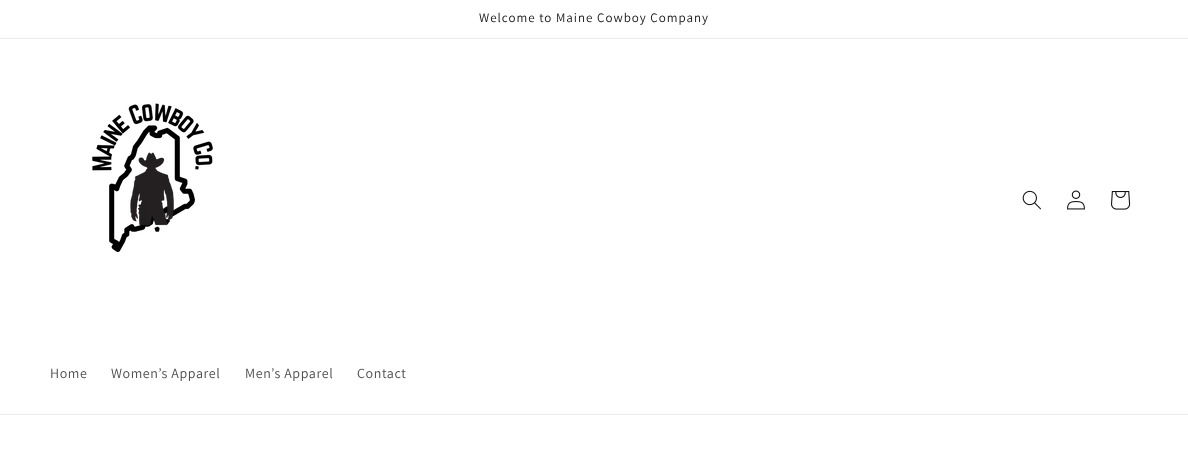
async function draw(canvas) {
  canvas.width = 1188
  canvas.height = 449
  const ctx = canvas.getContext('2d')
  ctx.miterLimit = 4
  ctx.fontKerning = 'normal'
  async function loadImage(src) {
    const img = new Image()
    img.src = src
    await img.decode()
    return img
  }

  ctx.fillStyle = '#fff'
  ctx.fillRect(0, 0, 1188, 449)
  ctx.fillStyle = '#ececec'
  ctx.fillRect(0, 38, 1188, 1)
  ctx.letterSpacing = '1px'
  ctx.font = '13px Assistant'
  ctx.fillStyle = '#121212'
  ctx.fillText('Welcome to Maine Cowboy Company', 479, 22)
  ctx.fillStyle = '#ececec'
  ctx.fillRect(0, 414, 1188, 1)
  ctx.drawImage(await loadImage('image0.png'), 92, 103, 121, 150)
  ctx.drawImage(await loadImage('image1.png'), 1022, 190, 19, 20)
  ctx.drawImage(await loadImage('image2.png'), 1067, 190, 18, 20)
  ctx.drawImage(await loadImage('image3.png'), 1111, 191, 20, 19)
  ctx.letterSpacing = '0.6px'
  ctx.font = '14px Assistant'
  ctx.fillStyle = '#4d4d4d'
  ctx.fillText('Home', 50, 378)
  ctx.fillText('Women’s Apparel', 111, 378)
  ctx.fillText('Men’s Apparel', 245, 378)
  ctx.fillText('Contact', 357, 378)
}

draw(document.querySelector('canvas'))
